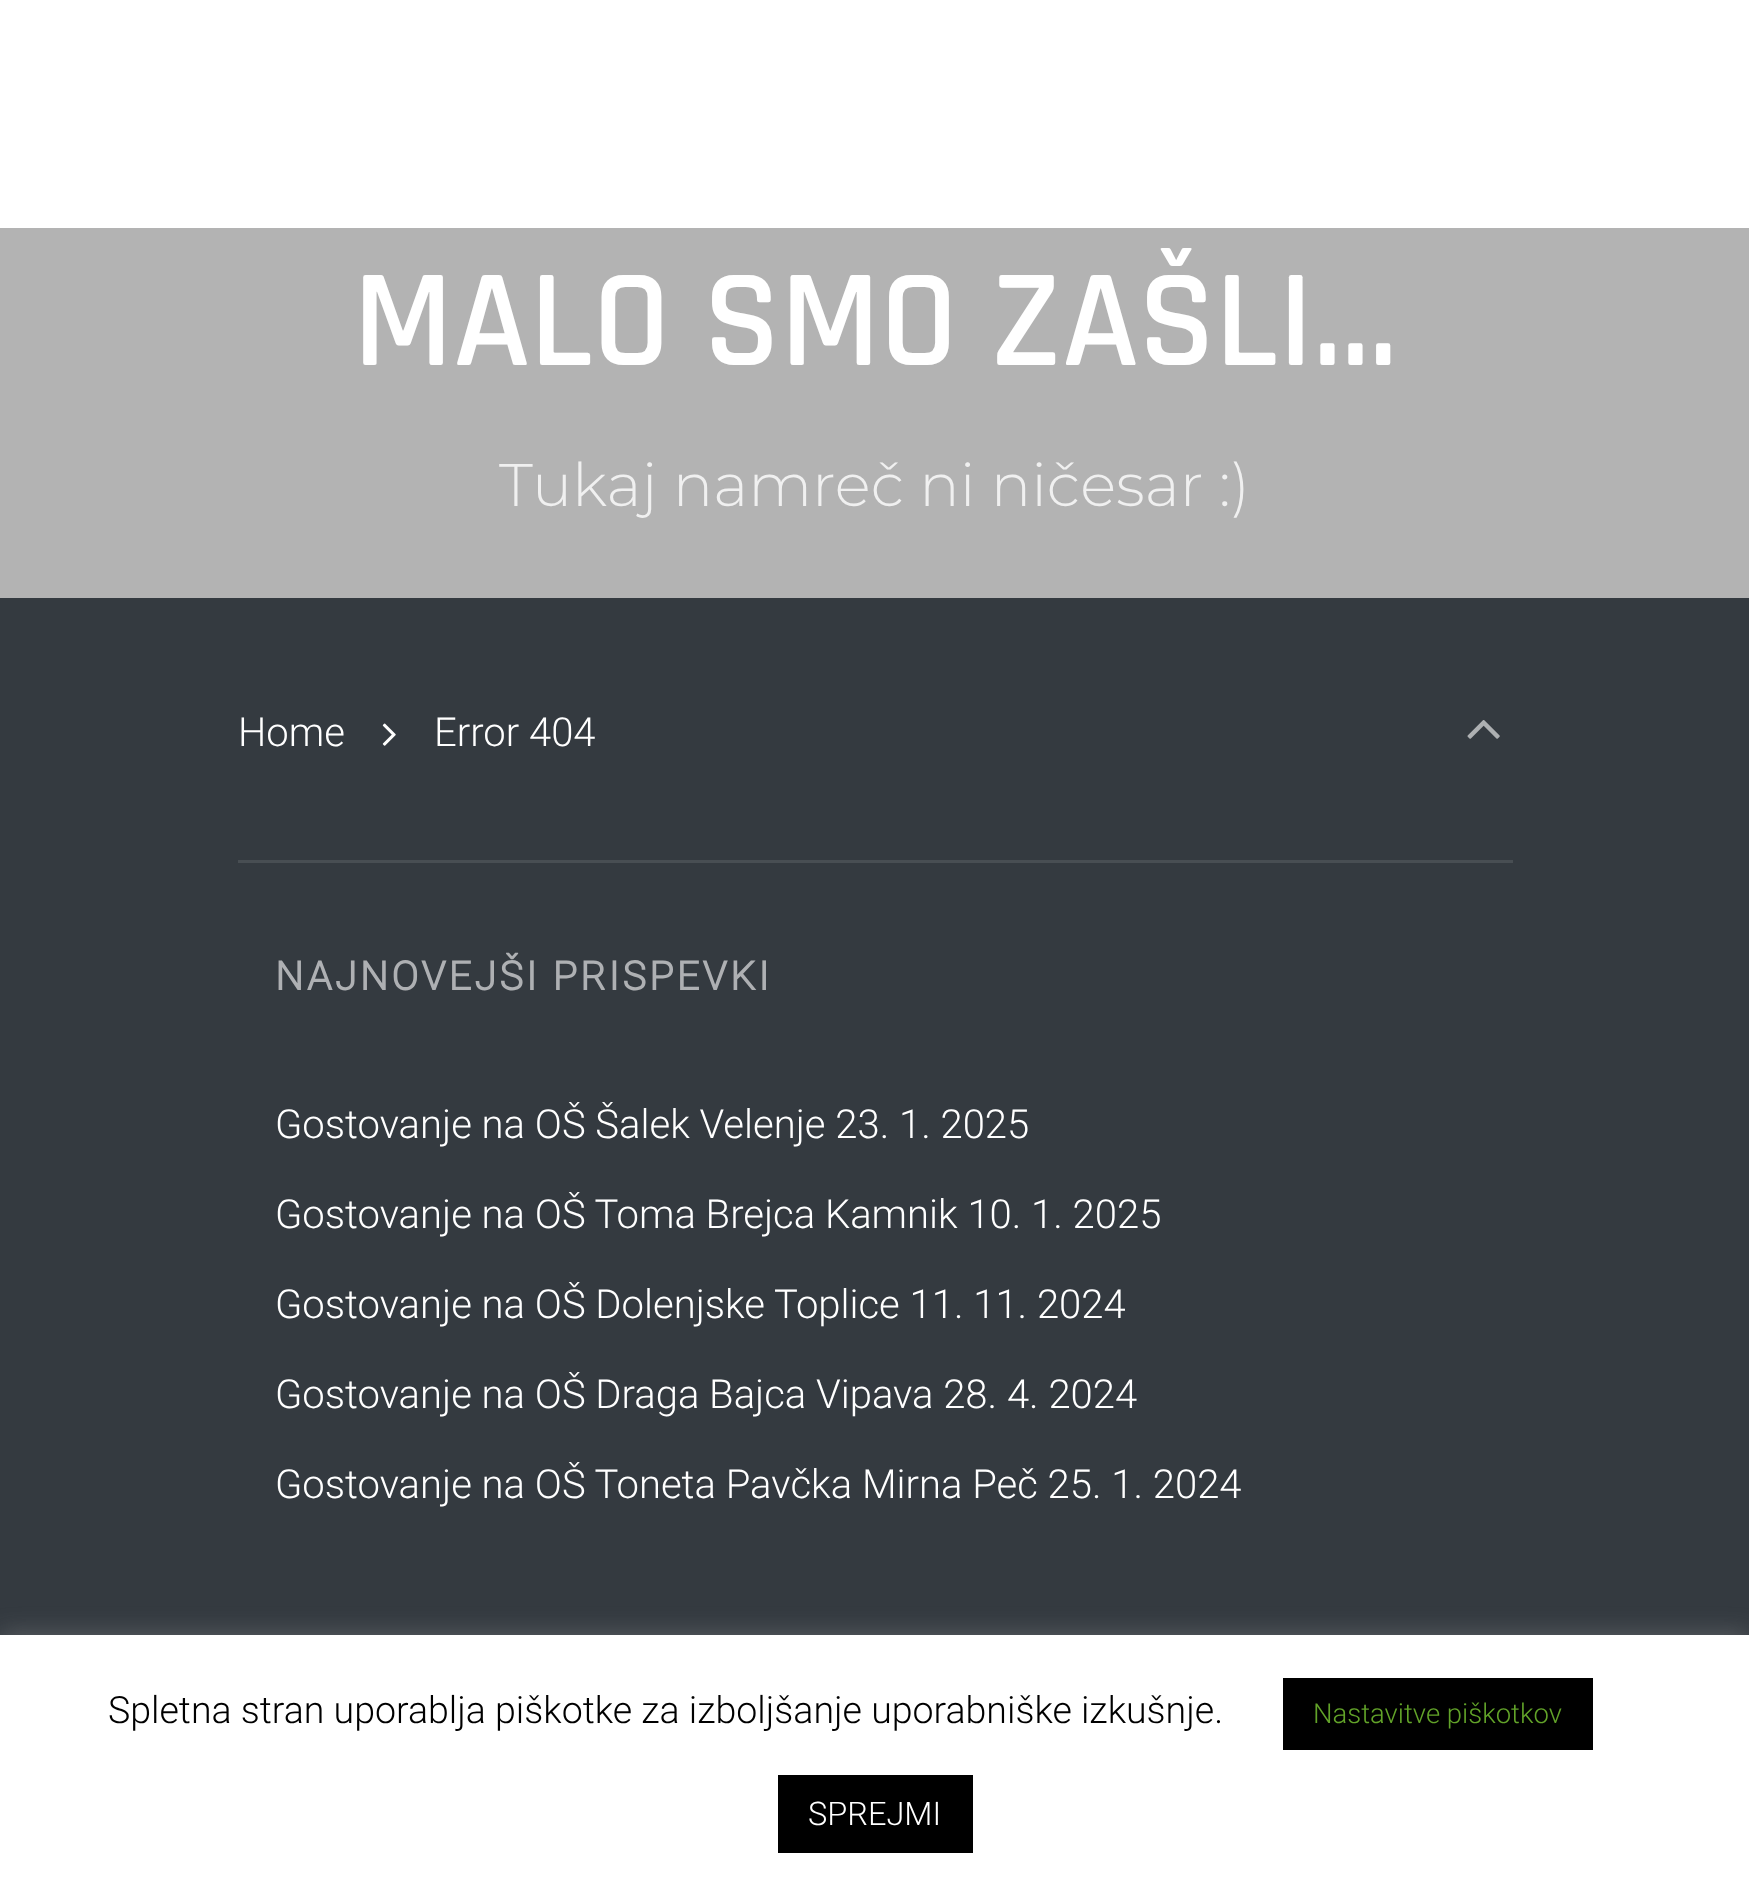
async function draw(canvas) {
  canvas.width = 1749
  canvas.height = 1893
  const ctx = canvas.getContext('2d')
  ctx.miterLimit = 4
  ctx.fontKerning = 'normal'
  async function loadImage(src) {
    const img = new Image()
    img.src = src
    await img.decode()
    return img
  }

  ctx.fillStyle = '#fff'
  ctx.fillRect(0, 0, 1749, 1893)
  ctx.fillStyle = '#b3b3b3'
  ctx.fillRect(0, 228, 1749, 370)
  ctx.font = '600 140px Rajdhani'
  ctx.fillStyle = '#fff'
  ctx.fillText('MALO SMO ZAŠLI...', 353, 365)
  ctx.font = '300 60px Montserrat'
  ctx.fillStyle = '#f0f0f0'
  ctx.fillText('Tukaj namreč ni ničesar :)', 499, 506)
  ctx.fillStyle = '#343a40'
  ctx.fillRect(0, 598, 1749, 1037)
  ctx.fillStyle = '#484e53'
  ctx.fillRect(238, 860, 1275, 3)
  ctx.font = '300 40px Roboto'
  ctx.fillStyle = '#fff'
  ctx.fillText('Home', 238, 746)
  ctx.drawImage(await loadImage('image0.png'), 382, 723, 14, 23)
  ctx.fillText('Error 404', 434, 746)
  ctx.drawImage(await loadImage('image1.png'), 1467, 720, 33, 19)
  ctx.letterSpacing = '3px'
  ctx.font = 'bold 40px Roboto'
  ctx.fillStyle = '#aeb0b3'
  ctx.fillText('NAJNOVEJŠI PRISPEVKI', 275, 990)
  ctx.letterSpacing = '0px'
  ctx.font = '300 40px Roboto'
  ctx.fillStyle = '#fff'
  ctx.fillText('Gostovanje na OŠ Šalek Velenje 23. 1. 2025', 275, 1138)
  ctx.fillText('Gostovanje na OŠ Toma Brejca Kamnik 10. 1. 2025', 275, 1228)
  ctx.fillText('Gostovanje na OŠ Dolenjske Toplice 11. 11. 2024', 275, 1318)
  ctx.fillText('Gostovanje na OŠ Draga Bajca Vipava 28. 4. 2024', 275, 1408)
  ctx.fillText('Gostovanje na OŠ Toneta Pavčka Mirna Peč 25. 1. 2024', 275, 1498)
  ctx.fillStyle = '#acabab4d'
  ctx.filter = 'blur(12.5px)'
  ctx.beginPath()
  ctx.rect(0, 1633, 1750, 260)
  ctx.fill()
  ctx.filter = 'none'
  ctx.fillStyle = '#fff'
  ctx.fillRect(0, 1635, 1749, 258)
  ctx.font = '300 37.5px Roboto'
  ctx.fillStyle = '#000'
  ctx.fillText('Spletna stran uporablja piškotke za izboljšanje uporabniške izkušnje.', 108, 1723)
  ctx.fillRect(1283, 1678, 310, 72)
  ctx.font = '300 27.5px Roboto'
  ctx.fillStyle = '#62a329'
  ctx.fillText('Nastavitve piškotkov', 1313, 1723)
  ctx.fillStyle = '#000'
  ctx.fillRect(778, 1775, 195, 78)
  ctx.font = '300 32.5px Roboto'
  ctx.fillStyle = '#fff'
  ctx.fillText('SPREJMI', 808, 1825)
}

draw(document.querySelector('canvas'))
